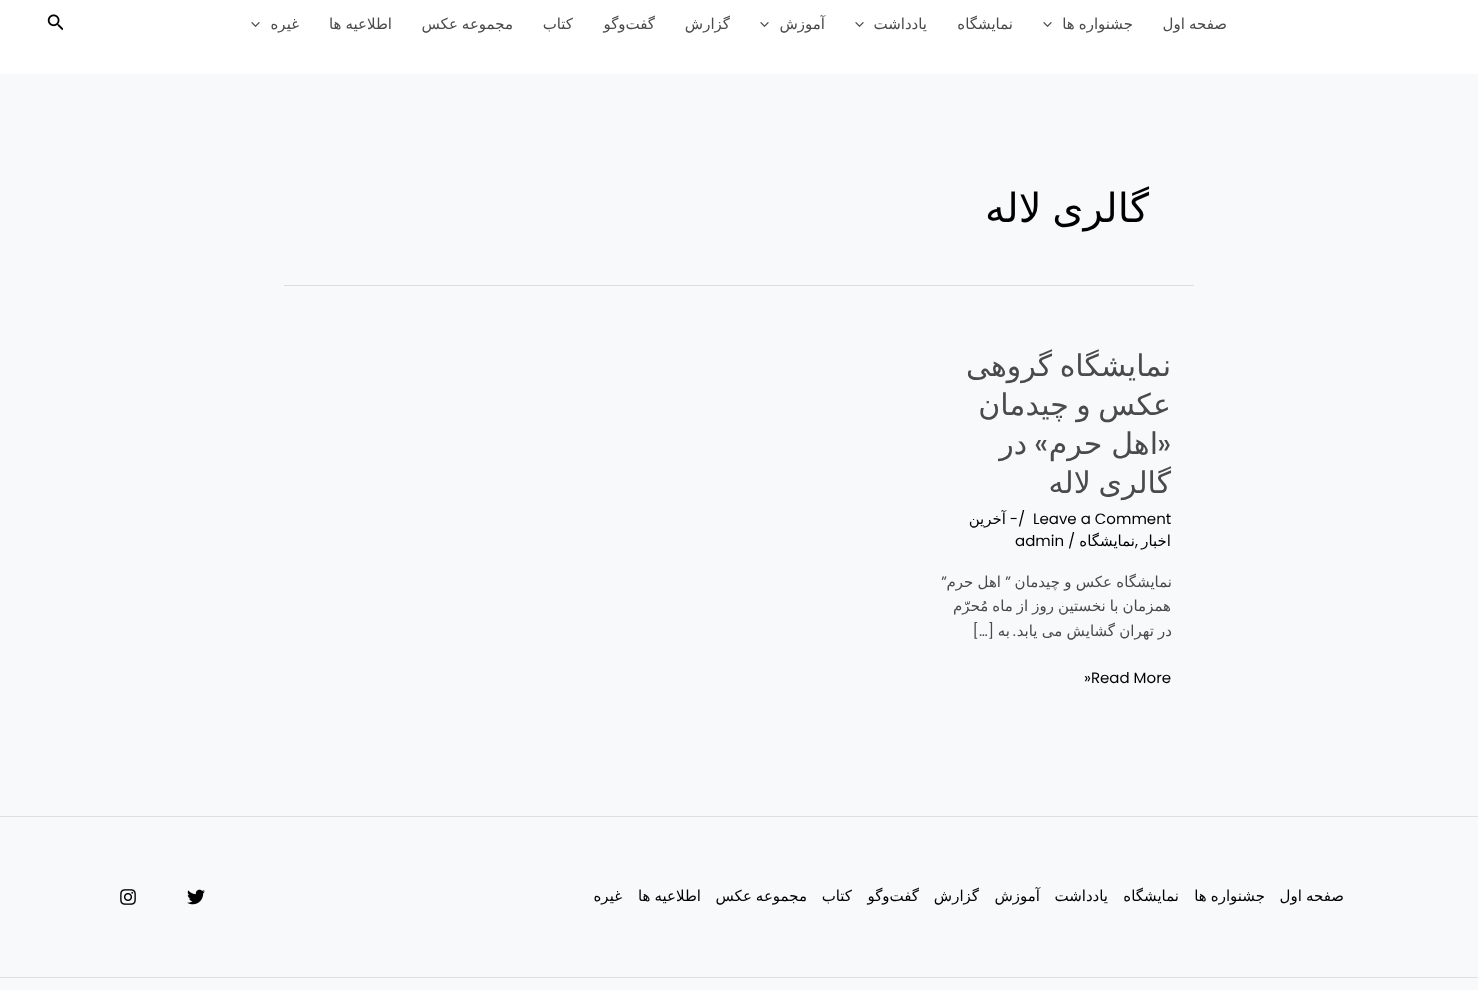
async function draw(canvas) {
  canvas.width = 1478
  canvas.height = 990
  const ctx = canvas.getContext('2d')
  ctx.miterLimit = 4
  ctx.fontKerning = 'normal'
  async function loadImage(src) {
    const img = new Image()
    img.src = src
    await img.decode()
    return img
  }

  ctx.fillStyle = '#f7f9fb'
  ctx.fillRect(0, 0, 1478, 990)
  ctx.fillStyle = '#fff'
  ctx.fillRect(0, 0, 1478, 74)
  ctx.wordSpacing = '-0.75px'
  ctx.direction = 'rtl'
  ctx.font = '15px DejaVu Sans'
  ctx.fillStyle = '#4a4a4a'
  ctx.fillText('صفحه اول', 1227, 29)
  ctx.fillText('جشنواره ها', 1133, 29)
  ctx.drawImage(await loadImage('image0.png'), 1043, 22, 9, 5)
  ctx.wordSpacing = '0px'
  ctx.fillText('نمایشگاه', 1013, 29)
  ctx.fillText('یادداشت', 927, 29)
  ctx.drawImage(await loadImage('image0.png'), 855, 22, 9, 5)
  ctx.fillText('آموزش', 825, 29)
  ctx.drawImage(await loadImage('image0.png'), 760, 22, 9, 5)
  ctx.fillText('گزارش', 730, 29)
  ctx.fillText('گفت‌وگو', 655, 29)
  ctx.fillText('کتاب', 573, 29)
  ctx.wordSpacing = '-0.75px'
  ctx.fillText('مجموعه عکس', 513, 29)
  ctx.fillText('اطلاعیه ها', 392, 29)
  ctx.wordSpacing = '0px'
  ctx.fillText('غیره', 299, 29)
  ctx.drawImage(await loadImage('image0.png'), 251, 22, 9, 5)
  ctx.drawImage(await loadImage('image1.png'), 47, 14, 16, 17)
  ctx.fillStyle = '#ddd'
  ctx.fillRect(284, 285, 910, 1)
  ctx.wordSpacing = '-2px'
  ctx.font = '40px DejaVu Sans'
  ctx.fillStyle = '#000'
  ctx.fillText('گالری لاله', 1149, 222)
  ctx.font = '30px DejaVu Sans'
  ctx.fillStyle = '#4a4a4a'
  ctx.fillText('نمایشگاه گروهی', 1171, 376)
  ctx.fillText('عکس و چیدمان', 1171, 415)
  ctx.wordSpacing = '0px'
  ctx.font = '30px Poppins'
  ctx.fillText('«', 1171, 454)
  ctx.wordSpacing = '-0.75px'
  ctx.font = '30px DejaVu Sans'
  ctx.fillText('اهل حرم', 1158, 454)
  ctx.wordSpacing = '0px'
  ctx.font = '30px Poppins'
  ctx.fillText('»', 1048, 454)
  ctx.font = '30px DejaVu Sans'
  ctx.fillText('در', 1027, 454)
  ctx.wordSpacing = '-2px'
  ctx.fillText('گالری لاله', 1171, 493)
  ctx.wordSpacing = '0px'
  ctx.direction = 'ltr'
  ctx.font = '15px Poppins'
  ctx.fillStyle = '#000'
  ctx.fillText('Leave a Comment', 1033, 524)
  ctx.fillText('/', 1018, 524)
  ctx.direction = 'rtl'
  ctx.fillText('-', 1018, 524)
  ctx.font = '15px DejaVu Sans'
  ctx.fillText('آخرین', 1006, 524)
  ctx.fillText('اخبار', 1171, 546)
  ctx.direction = 'ltr'
  ctx.font = '15px Poppins'
  ctx.fillText(',', 1135, 546)
  ctx.direction = 'rtl'
  ctx.font = '15px DejaVu Sans'
  ctx.fillText('نمایشگاه', 1135, 546)
  ctx.direction = 'ltr'
  ctx.font = '15px Poppins'
  ctx.fillText('/', 1068, 546)
  ctx.fillText('admin', 1015, 546)
  ctx.wordSpacing = '-0.5px'
  ctx.direction = 'rtl'
  ctx.font = '15px DejaVu Sans'
  ctx.fillStyle = '#4a4a4a'
  ctx.fillText('نمایشگاه عکس و چیدمان', 1172, 587)
  ctx.wordSpacing = '0px'
  ctx.font = '15px Poppins'
  ctx.fillText('”', 1011, 587)
  ctx.wordSpacing = '-0.5px'
  ctx.font = '15px DejaVu Sans'
  ctx.fillText('اهل حرم', 1001, 587)
  ctx.wordSpacing = '0px'
  ctx.font = '15px Poppins'
  ctx.fillText('”', 947, 587)
  ctx.wordSpacing = '-0.75px'
  ctx.font = '15px DejaVu Sans'
  ctx.fillText('همزمان با نخستین روز از ماه مُحرّم', 1171, 611)
  ctx.wordSpacing = '-0.5px'
  ctx.fillText('در تهران گشایش می یابد', 1172, 636)
  ctx.wordSpacing = '0px'
  ctx.font = '15px Poppins'
  ctx.fillText('.', 1016, 636)
  ctx.font = '15px DejaVu Sans'
  ctx.fillText('به', 1010, 636)
  ctx.font = '15px Poppins'
  ctx.fillText('[…]', 994, 636)
  ctx.direction = 'ltr'
  ctx.fillStyle = '#000'
  ctx.fillText('»Read More', 1084, 683)
  ctx.fillStyle = '#dee0e2'
  ctx.fillRect(0, 816, 1478, 1)
  ctx.wordSpacing = '-0.75px'
  ctx.direction = 'rtl'
  ctx.font = '15px DejaVu Sans'
  ctx.fillStyle = '#000'
  ctx.fillText('صفحه اول', 1344, 901)
  ctx.fillText('جشنواره ها', 1265, 901)
  ctx.wordSpacing = '0px'
  ctx.fillText('نمایشگاه', 1179, 901)
  ctx.fillText('یادداشت', 1108, 901)
  ctx.fillText('آموزش', 1040, 901)
  ctx.fillText('گزارش', 979, 901)
  ctx.fillText('گفت‌وگو', 919, 901)
  ctx.fillText('کتاب', 852, 901)
  ctx.wordSpacing = '-0.75px'
  ctx.fillText('مجموعه عکس', 807, 901)
  ctx.fillText('اطلاعیه ها', 701, 901)
  ctx.wordSpacing = '0px'
  ctx.fillText('غیره', 622, 901)
  ctx.drawImage(await loadImage('image2.png'), 187, 889, 18, 16)
  ctx.drawImage(await loadImage('image3.png'), 120, 889, 16, 16)
  ctx.fillStyle = '#dee0e2'
  ctx.fillRect(0, 977, 1478, 1)
}

draw(document.querySelector('canvas'))
